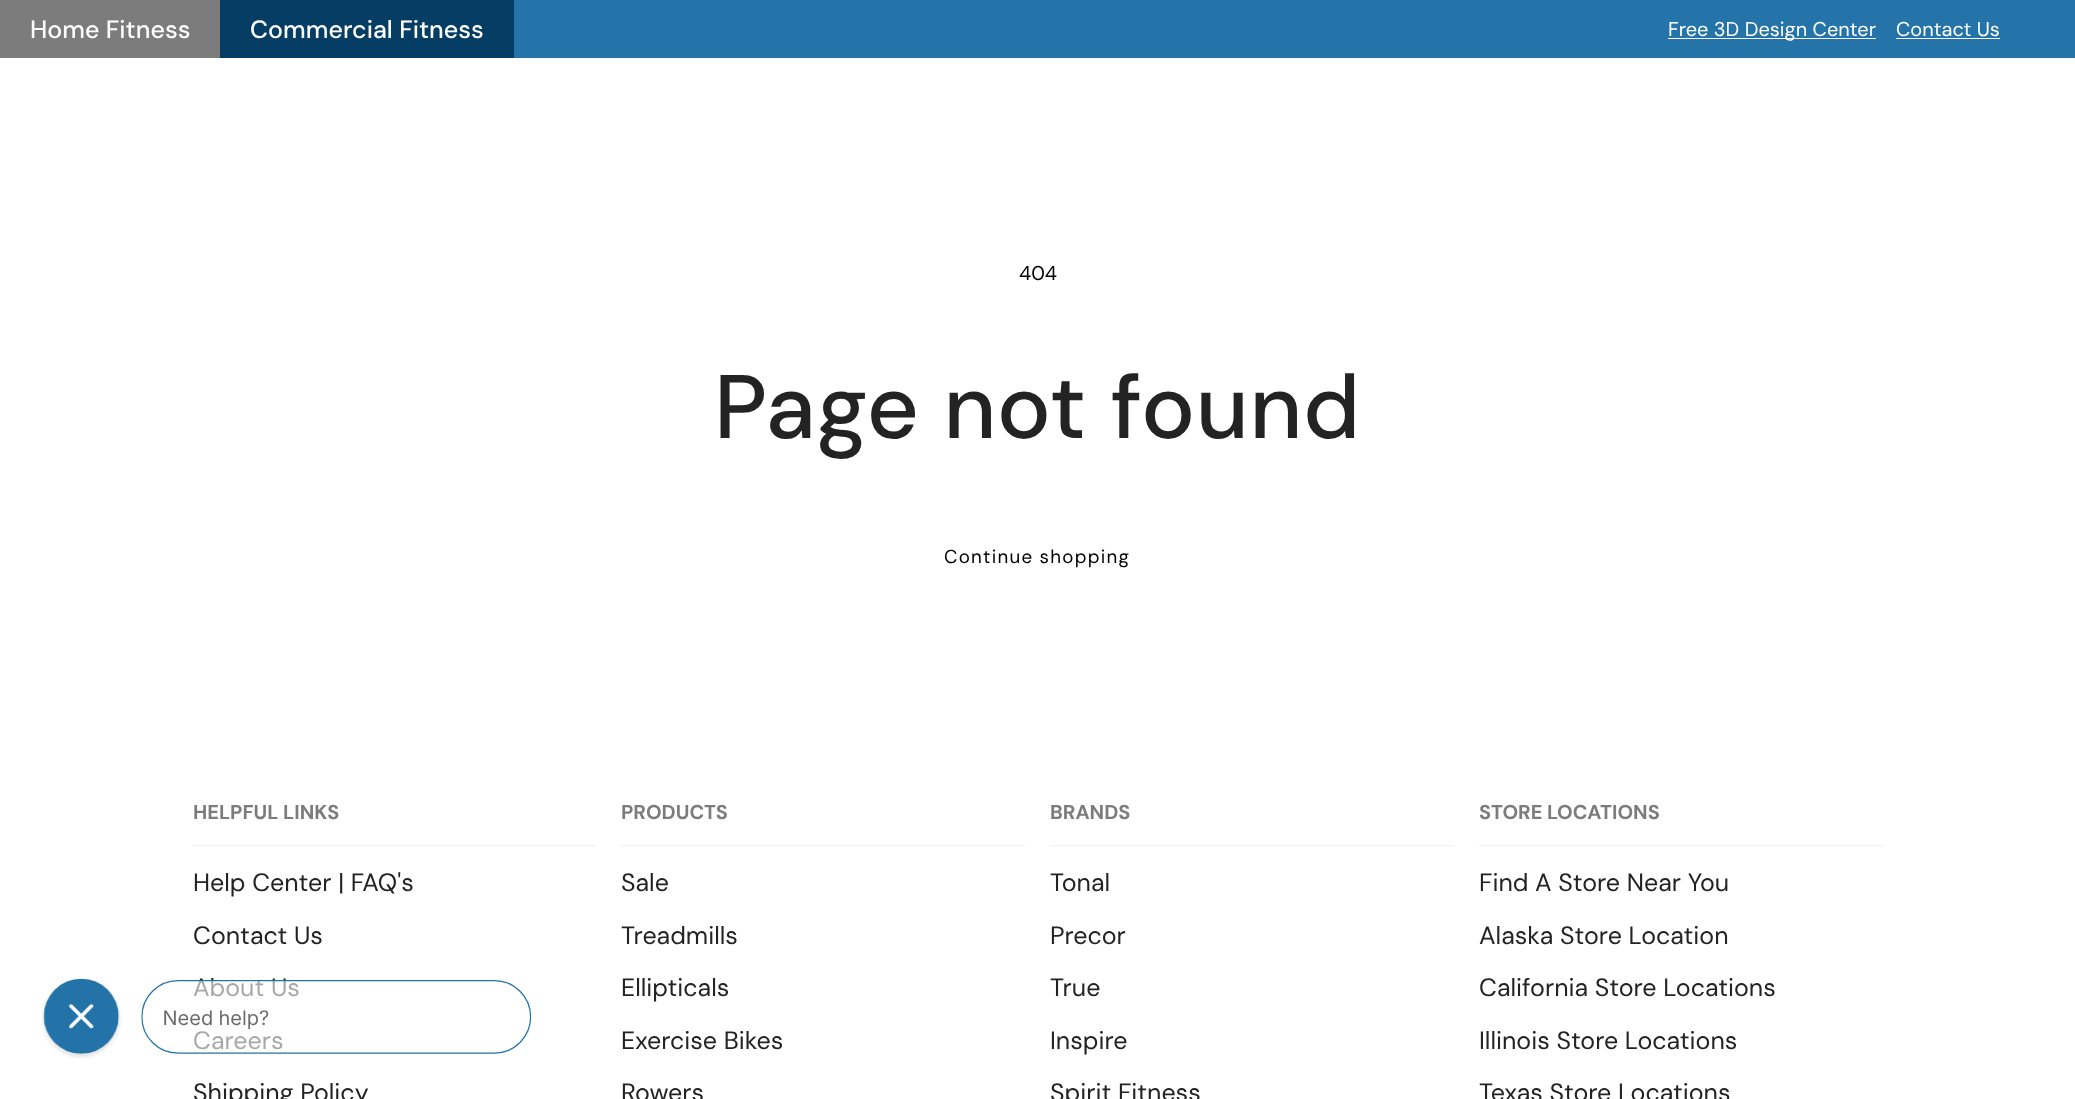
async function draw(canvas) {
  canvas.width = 2075
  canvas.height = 1099
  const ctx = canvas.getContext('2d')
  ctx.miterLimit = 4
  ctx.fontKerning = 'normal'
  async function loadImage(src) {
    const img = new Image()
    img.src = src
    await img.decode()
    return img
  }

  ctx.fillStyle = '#fff'
  ctx.fillRect(0, 0, 2075, 1099)
  ctx.fillStyle = '#2473a9'
  ctx.fillRect(514, 0, 1561, 58)
  ctx.fillStyle = '#7c7c7c'
  ctx.fillRect(0, 0, 220, 58)
  ctx.font = '500 25px DM Sans'
  ctx.fillStyle = '#fff'
  ctx.fillText('Home Fitness', 30, 38)
  ctx.fillStyle = '#053d64'
  ctx.fillRect(220, 0, 294, 58)
  ctx.fillStyle = '#fff'
  ctx.fillText('Commercial Fitness', 250, 38)
  ctx.fillRect(1668, 38, 208, 1)
  ctx.font = '20px DM Sans'
  ctx.fillText('Free 3D Design Center', 1668, 36)
  ctx.fillText('Contact Us', 1896, 36)
  ctx.fillRect(1896, 38, 104, 1)
  ctx.fillStyle = '#000'
  ctx.fillText('404', 1019, 280)
  ctx.letterSpacing = '0.75px'
  ctx.font = '500 90px DM Sans'
  ctx.fillStyle = '#232323'
  ctx.fillText('Page not found', 714, 438)
  ctx.letterSpacing = '1.25px'
  ctx.font = '18.75px DM Sans'
  ctx.fillStyle = '#000'
  ctx.fillText('Continue shopping', 944, 563)
  ctx.fillStyle = '#f3f3f3'
  ctx.fillRect(193, 845, 403, 1)
  ctx.letterSpacing = '0px'
  ctx.font = 'bold 20px DM Sans'
  ctx.fillStyle = '#7c7c7c'
  ctx.fillText('HELPFUL LINKS', 193, 819)
  ctx.font = '25px DM Sans'
  ctx.fillStyle = '#232323'
  ctx.fillText('Help Center | FAQ\'s', 193, 891)
  ctx.fillText('Contact Us', 193, 944)
  ctx.fillText('About Us', 193, 996)
  ctx.fillText('Careers', 193, 1049)
  ctx.fillText('Shipping Policy', 193, 1101)
  ctx.fillStyle = '#f3f3f3'
  ctx.fillRect(621, 845, 404, 1)
  ctx.font = 'bold 20px DM Sans'
  ctx.fillStyle = '#7c7c7c'
  ctx.fillText('PRODUCTS', 621, 819)
  ctx.font = '25px DM Sans'
  ctx.fillStyle = '#232323'
  ctx.fillText('Sale', 621, 891)
  ctx.fillText('Treadmills', 621, 944)
  ctx.fillText('Ellipticals', 621, 996)
  ctx.fillText('Exercise Bikes', 621, 1049)
  ctx.fillText('Rowers', 621, 1101)
  ctx.fillStyle = '#f3f3f3'
  ctx.fillRect(1050, 845, 404, 1)
  ctx.font = 'bold 20px DM Sans'
  ctx.fillStyle = '#7c7c7c'
  ctx.fillText('BRANDS', 1050, 819)
  ctx.font = '25px DM Sans'
  ctx.fillStyle = '#232323'
  ctx.fillText('Tonal', 1050, 891)
  ctx.fillText('Precor', 1050, 944)
  ctx.fillText('True', 1050, 996)
  ctx.fillText('Inspire', 1050, 1049)
  ctx.fillText('Spirit Fitness', 1050, 1101)
  ctx.fillStyle = '#f3f3f3'
  ctx.fillRect(1479, 845, 404, 1)
  ctx.font = 'bold 20px DM Sans'
  ctx.fillStyle = '#7c7c7c'
  ctx.fillText('STORE LOCATIONS', 1479, 819)
  ctx.font = '25px DM Sans'
  ctx.fillStyle = '#232323'
  ctx.fillText('Find A Store Near You', 1479, 891)
  ctx.fillText('Alaska Store Location', 1479, 944)
  ctx.fillText('California Store Locations', 1479, 996)
  ctx.fillText('Illinois Store Locations', 1479, 1049)
  ctx.fillText('Texas Store Locations', 1479, 1101)
  ctx.drawImage(await loadImage('image0.png'), 41, 978, 491, 81)
}

draw(document.querySelector('canvas'))
